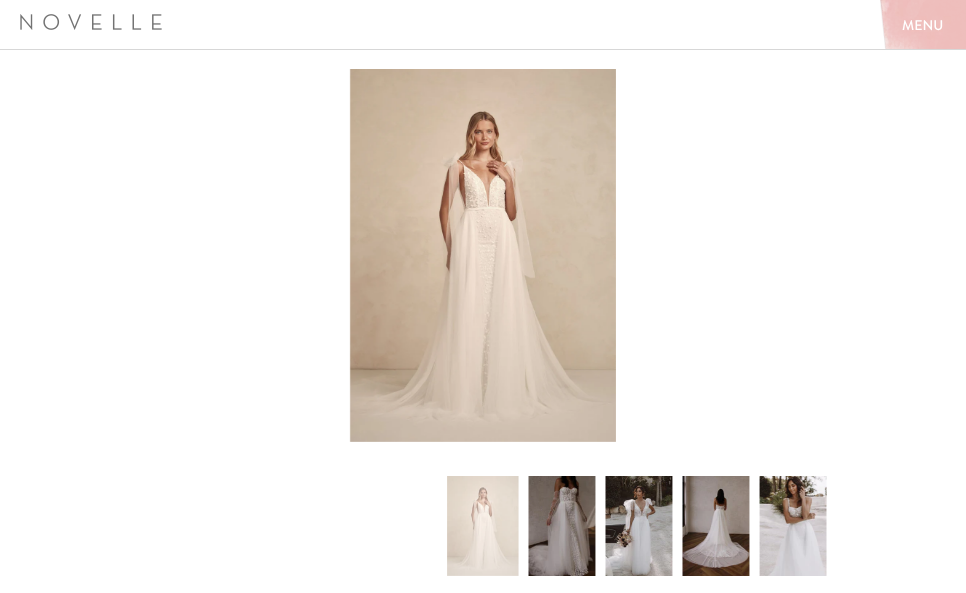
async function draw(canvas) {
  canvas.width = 966
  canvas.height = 593
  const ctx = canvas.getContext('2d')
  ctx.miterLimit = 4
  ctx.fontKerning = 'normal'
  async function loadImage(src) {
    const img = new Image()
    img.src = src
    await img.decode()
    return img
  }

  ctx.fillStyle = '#fff'
  ctx.fillRect(0, 0, 966, 593)
  ctx.fillStyle = '#d7d7d7'
  ctx.fillRect(0, 49, 966, 1)
  ctx.drawImage(await loadImage('image0.png'), 20, 14, 142, 16)
  ctx.drawImage(await loadImage('image1.png'), 880, 0, 86, 49)
  ctx.font = '500 14px Brandon Grotesque'
  ctx.fillStyle = '#fff'
  ctx.fillText('MENU', 902, 30)
  ctx.drawImage(await loadImage('image2.png'), 349, 69, 267, 373)
  ctx.drawImage(await loadImage('image3.png'), 447, 476, 72, 100)
  ctx.drawImage(await loadImage('image4.png'), 528, 476, 68, 100)
  ctx.drawImage(await loadImage('image5.png'), 605, 476, 68, 100)
  ctx.drawImage(await loadImage('image6.png'), 682, 476, 68, 100)
  ctx.drawImage(await loadImage('image7.png'), 759, 476, 68, 100)
}

draw(document.querySelector('canvas'))
